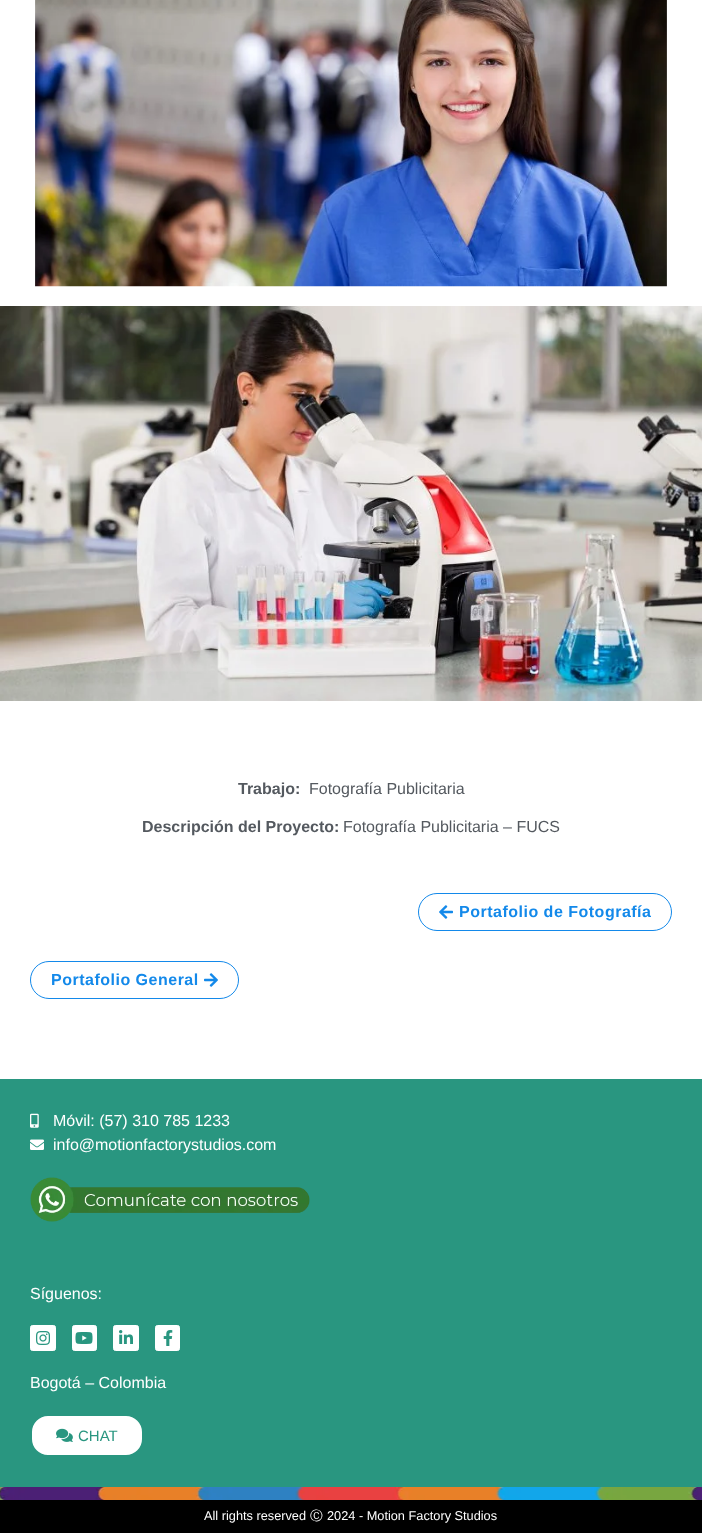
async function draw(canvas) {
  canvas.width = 702
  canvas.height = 1533
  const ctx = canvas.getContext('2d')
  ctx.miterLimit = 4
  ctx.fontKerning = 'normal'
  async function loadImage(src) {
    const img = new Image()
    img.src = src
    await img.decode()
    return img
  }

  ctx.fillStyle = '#fff'
  ctx.fillRect(0, 0, 702, 1533)
  ctx.drawImage(await loadImage('image0.png'), 35, 0, 632, 287)
  ctx.drawImage(await loadImage('image1.png'), 0, 306, 702, 395)
  ctx.font = 'bold 16px Liberation Sans'
  ctx.fillStyle = '#54595f'
  ctx.fillText('Trabajo:', 238, 794)
  ctx.font = '16px Liberation Sans'
  ctx.fillText('Fotografía Publicitaria', 309, 794)
  ctx.font = 'bold 16px Liberation Sans'
  ctx.fillText('Descripción del Proyecto:', 142, 832)
  ctx.font = '16px Liberation Sans'
  ctx.fillText('Fotografía Publicitaria – FUCS', 343, 832)
  ctx.beginPath()
  ctx.roundRect(418.5, 893.5, 253, 37, 18.5)
  ctx.strokeStyle = '#1389ea'
  ctx.stroke()
  ctx.drawImage(await loadImage('image2.png'), 439, 905, 14, 14)
  ctx.letterSpacing = '0.5px'
  ctx.font = 'bold 16px Liberation Sans'
  ctx.fillStyle = '#1389ea'
  ctx.fillText('Portafolio de Fotografía', 459, 917)
  ctx.beginPath()
  ctx.roundRect(30.5, 961.5, 208, 37, 18.5)
  ctx.stroke()
  ctx.fillText('Portafolio General', 51, 985)
  ctx.drawImage(await loadImage('image3.png'), 204, 973, 14, 14)
  ctx.fillStyle = '#299680'
  ctx.fillRect(0, 1079, 702, 408)
  ctx.drawImage(await loadImage('image4.png'), 30, 1113, 9, 15)
  ctx.letterSpacing = '0px'
  ctx.font = '16px Liberation Sans'
  ctx.fillStyle = '#fff'
  ctx.fillText('Móvil: (57) 310 785 1233', 53, 1126)
  ctx.drawImage(await loadImage('image5.png'), 30, 1139, 14, 11)
  ctx.fillText('info@motionfactorystudios.com', 53, 1150)
  ctx.drawImage(await loadImage('image6.png'), 30, 1177, 280, 45)
  ctx.fillText('Síguenos:', 30, 1299)
  ctx.beginPath()
  ctx.roundRect(30.5, 1325.5, 25, 25, 2)
  ctx.fill()
  ctx.strokeStyle = '#fff'
  ctx.stroke()
  ctx.drawImage(await loadImage('image7.png'), 36, 1331, 14, 14)
  ctx.beginPath()
  ctx.roundRect(72.5, 1325.5, 24, 25, 2)
  ctx.fill()
  ctx.stroke()
  ctx.drawImage(await loadImage('image8.png'), 75, 1332, 18, 12)
  ctx.beginPath()
  ctx.roundRect(113.5, 1325.5, 25, 25, 2)
  ctx.fill()
  ctx.stroke()
  ctx.drawImage(await loadImage('image9.png'), 119, 1330, 14, 14)
  ctx.beginPath()
  ctx.roundRect(155.5, 1325.5, 24, 25, 2)
  ctx.fill()
  ctx.stroke()
  ctx.drawImage(await loadImage('image10.png'), 163, 1330, 10, 16)
  ctx.fillText('Bogotá – Colombia', 30, 1388)
  ctx.beginPath()
  ctx.roundRect(31, 1415, 112, 41, 17)
  ctx.fill()
  ctx.strokeStyle = '#299680'
  ctx.lineWidth = 2
  ctx.stroke()
  ctx.drawImage(await loadImage('image11.png'), 56, 1428, 17, 14)
  ctx.font = '15px Liberation Sans'
  ctx.fillStyle = '#299680'
  ctx.fillText('CHAT', 78, 1441)
  ctx.drawImage(await loadImage('image12.png'), 0, 1487, 702, 13)
  ctx.fillStyle = '#000'
  ctx.fillRect(0, 1500, 702, 33)
  ctx.font = '12.75px Liberation Sans'
  ctx.fillStyle = '#fff'
  ctx.fillText('All rights reserved', 204, 1520)
  ctx.font = '500 12.75px WenQuanYi Zen Hei'
  ctx.fillText('Ⓒ', 310, 1520)
  ctx.font = '12.75px Liberation Sans'
  ctx.fillText('2024 - Motion Factory Studios', 327, 1520)
}

draw(document.querySelector('canvas'))
